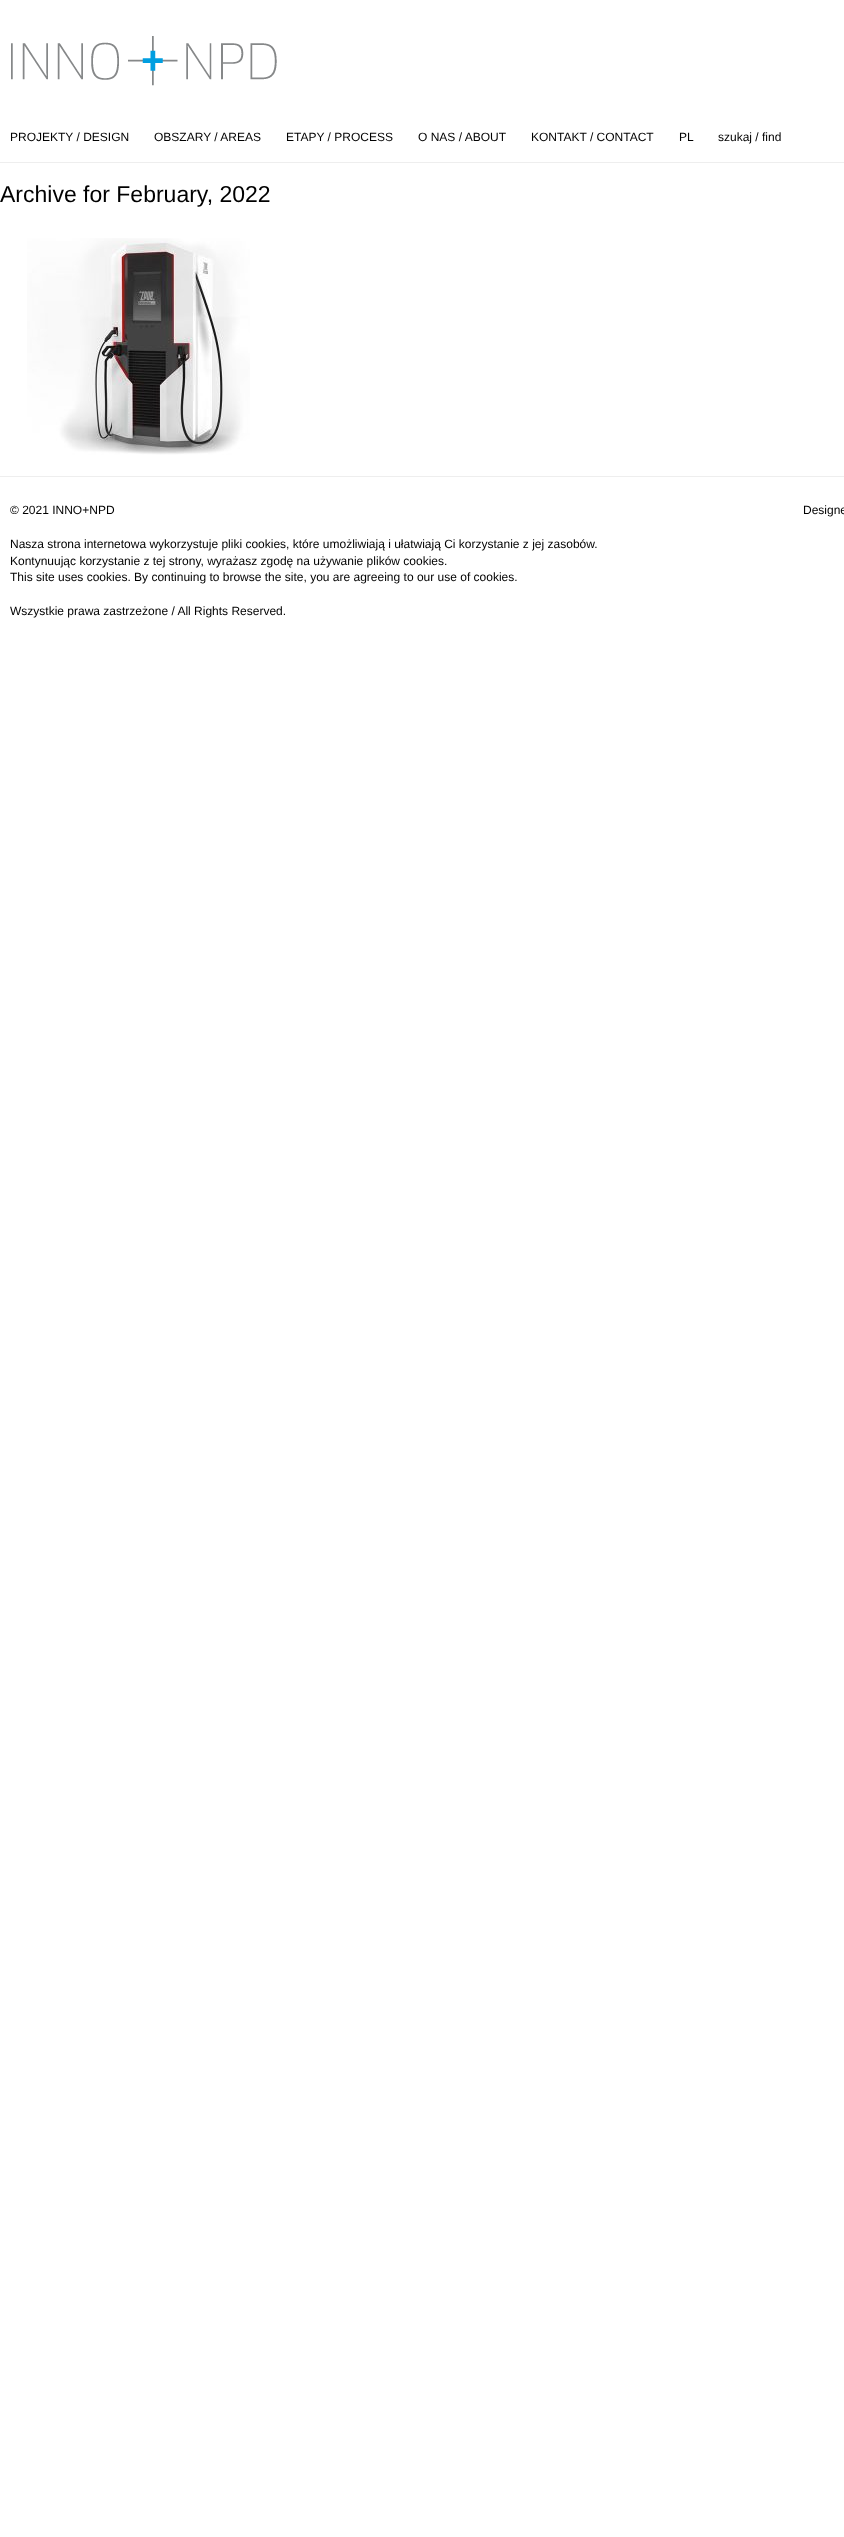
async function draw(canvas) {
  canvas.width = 844
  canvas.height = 2537
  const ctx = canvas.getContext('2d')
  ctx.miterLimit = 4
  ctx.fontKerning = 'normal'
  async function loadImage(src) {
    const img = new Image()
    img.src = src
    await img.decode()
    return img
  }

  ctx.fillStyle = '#fff'
  ctx.fillRect(0, 0, 844, 2537)
  ctx.drawImage(await loadImage('image0.png'), 11, 36, 266, 50)
  ctx.fillStyle = '#eee'
  ctx.fillRect(0, 162, 844, 1)
  ctx.font = '12px Liberation Sans'
  ctx.fillStyle = '#000'
  ctx.fillText('PROJEKTY / DESIGN', 10, 141)
  ctx.fillText('OBSZARY / AREAS', 154, 141)
  ctx.fillText('ETAPY / PROCESS', 286, 141)
  ctx.fillText('O NAS / ABOUT', 418, 141)
  ctx.fillText('KONTAKT / CONTACT', 531, 141)
  ctx.fillText('PL', 679, 141)
  ctx.fillText('szukaj / find', 718, 141)
  ctx.font = '23px Liberation Sans'
  ctx.fillText('Archive for February, 2022', 0, 202)
  ctx.drawImage(await loadImage('image1.png'), 27, 238, 223, 217)
  ctx.fillStyle = '#eee'
  ctx.fillRect(0, 476, 844, 1)
  ctx.font = '12px Liberation Sans'
  ctx.fillStyle = '#000'
  ctx.fillText('© 2021 INNO+NPD', 10, 514)
  ctx.fillText('Nasza strona internetowa wykorzystuje pliki cookies, które umożliwiają i ułatwiają Ci korzystanie z jej zasobów.', 10, 548)
  ctx.fillText('Kontynuując korzystanie z tej strony, wyrażasz zgodę na używanie plików cookies.', 10, 565)
  ctx.fillText('This site uses cookies. By continuing to browse the site, you are agreeing to our use of cookies.', 10, 581)
  ctx.fillText('Wszystkie prawa zastrzeżone / All Rights Reserved.', 10, 615)
  ctx.fillText('Designe', 803, 514)
}

draw(document.querySelector('canvas'))
